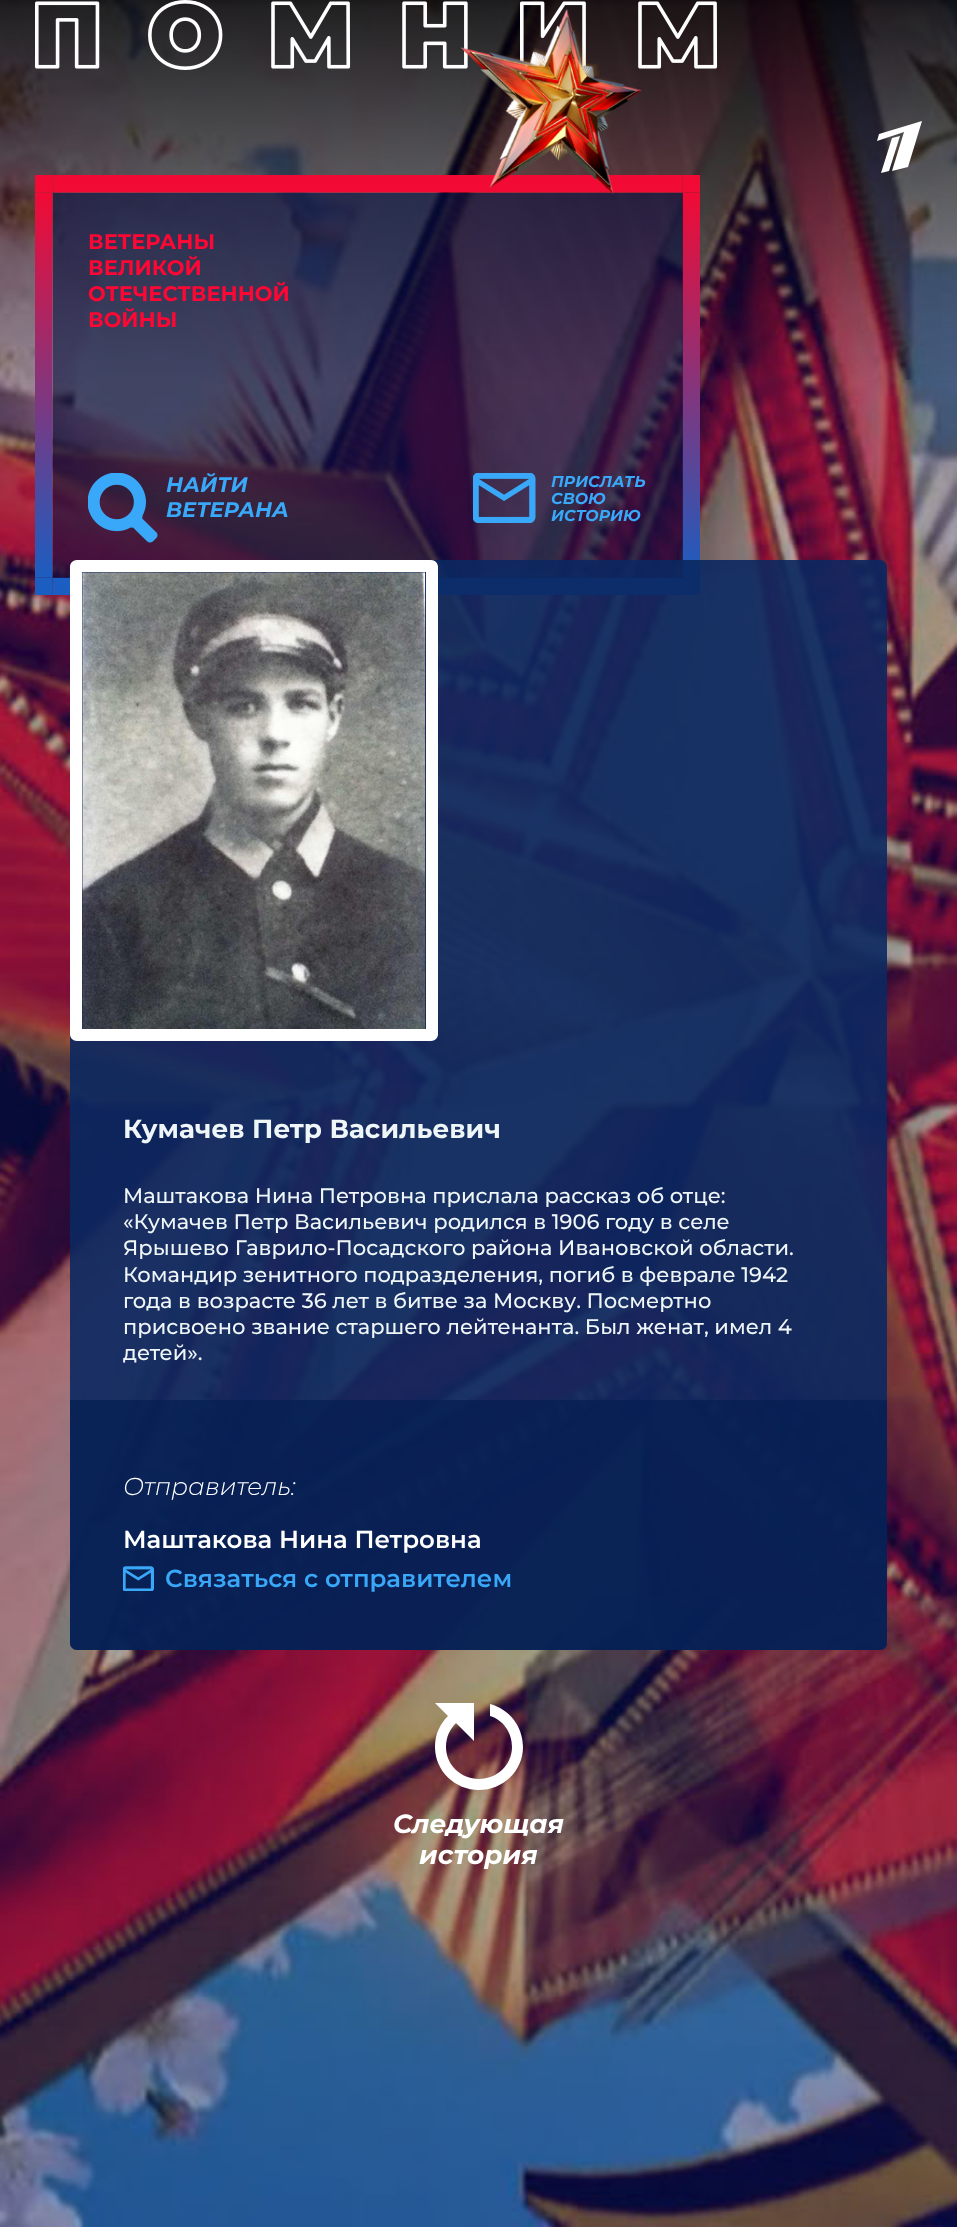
async function draw(canvas) {
  canvas.width = 957
  canvas.height = 2227
  const ctx = canvas.getContext('2d')
  ctx.miterLimit = 4
  ctx.fontKerning = 'normal'
  async function loadImage(src) {
    const img = new Image()
    img.src = src
    await img.decode()
    return img
  }

  ctx.fillStyle = '#fff'
  ctx.fillRect(0, 0, 957, 2227)
  ctx.drawImage(await loadImage('image0.png'), 0, 0, 957, 2227)
  ctx.drawImage(await loadImage('image1.png'), 35, 0, 683, 70)
  ctx.drawImage(await loadImage('image3.png'), 35, 175, 665, 420)
  ctx.fillStyle = '#070d4099'
  ctx.fillRect(53, 193, 630, 385)
  ctx.drawImage(await loadImage('image2.png'), 460, 9, 182, 186)
  ctx.fillStyle = '#fff'
  ctx.beginPath()
  ctx.moveTo(877, 141)
  ctx.lineTo(879, 134)
  ctx.lineTo(922, 121)
  ctx.lineTo(908, 167)
  ctx.lineTo(892, 171)
  ctx.lineTo(904, 132)
  ctx.closePath()
  ctx.moveTo(881, 173)
  ctx.lineTo(892, 138)
  ctx.lineTo(900, 136)
  ctx.lineTo(889, 171)
  ctx.closePath()
  ctx.fill('evenodd')
  ctx.font = 'bold 21px Montserrat'
  ctx.fillStyle = '#ff0734'
  ctx.fillText('ВЕТЕРАНЫ', 88, 249)
  ctx.fillText('ВЕЛИКОЙ', 88, 275)
  ctx.fillText('ОТЕЧЕСТВЕННОЙ', 88, 301)
  ctx.fillText('ВОЙНЫ', 88, 327)
  ctx.drawImage(await loadImage('image4.png'), 88, 473, 70, 70)
  ctx.font = 'italic bold 21px Montserrat'
  ctx.fillStyle = '#3aa8f8'
  ctx.fillText('НАЙТИ', 166, 492)
  ctx.fillText('ВЕТЕРАНА', 166, 517)
  ctx.drawImage(await loadImage('image5.png'), 473, 473, 63, 50)
  ctx.font = 'italic bold 15.75px Montserrat'
  ctx.fillText('ПРИСЛАТЬ', 551, 487)
  ctx.fillText('СВОЮ', 551, 504)
  ctx.fillText('ИСТОРИЮ', 551, 521)
  ctx.fillStyle = '#0b2861e6'
  ctx.beginPath()
  ctx.roundRect(70, 560, 817, 1090, 7)
  ctx.fill()
  ctx.fillStyle = '#fff'
  ctx.beginPath()
  ctx.moveTo(77, 560)
  ctx.bezierCurveTo(73, 560, 70, 563, 70, 567)
  ctx.lineTo(70, 1034)
  ctx.bezierCurveTo(70, 1038, 73, 1041, 77, 1041)
  ctx.lineTo(431, 1041)
  ctx.bezierCurveTo(435, 1041, 438, 1038, 438, 1034)
  ctx.lineTo(438, 567)
  ctx.bezierCurveTo(438, 563, 435, 560, 431, 560)
  ctx.closePath()
  ctx.moveTo(82, 572)
  ctx.lineTo(82, 1029)
  ctx.lineTo(426, 1029)
  ctx.lineTo(426, 572)
  ctx.closePath()
  ctx.fill('evenodd')
  ctx.drawImage(await loadImage('image6.png'), 82, 572, 344, 457)
  ctx.font = 'bold 26.25px Montserrat'
  ctx.fillStyle = '#eff6f8'
  ctx.fillText('Кумачев Петр Васильевич', 123, 1138)
  ctx.font = '500 21px Montserrat'
  ctx.fillText('Маштакова Нина Петровна прислала рассказ об отце:', 123, 1203)
  ctx.fillText('«Кумачев Петр Васильевич родился в 1906 году в селе', 123, 1229)
  ctx.fillText('Ярышево Гаврило-Посадского района Ивановской области.', 123, 1255)
  ctx.fillText('Командир зенитного подразделения, погиб в феврале 1942', 123, 1282)
  ctx.fillText('года в возрасте 36 лет в битве за Москву. Посмертно', 123, 1308)
  ctx.fillText('присвоено звание старшего лейтенанта. Был женат, имел 4', 123, 1334)
  ctx.fillText('детей».', 123, 1360)
  ctx.fillStyle = '#041e51b3'
  ctx.beginPath()
  ctx.roundRect(70, 1400, 817, 250, [0, 0, 7, 7])
  ctx.fill()
  ctx.font = 'italic 300 24.5px Montserrat'
  ctx.fillStyle = '#fff'
  ctx.fillText('Отправитель:', 123, 1495)
  ctx.font = '600 24.5px Montserrat'
  ctx.fillText('Маштакова Нина Петровна', 123, 1548)
  ctx.drawImage(await loadImage('image7.png'), 123, 1566, 31, 25)
  ctx.fillStyle = '#3aa8f8'
  ctx.fillText('Связаться с отправителем', 165, 1587)
  ctx.fillStyle = '#fff'
  ctx.beginPath()
  ctx.moveTo(448, 1716)
  ctx.bezierCurveTo(440, 1724, 435, 1734, 435, 1747)
  ctx.bezierCurveTo(435, 1771, 455, 1790, 479, 1790)
  ctx.bezierCurveTo(503, 1790, 523, 1771, 523, 1747)
  ctx.bezierCurveTo(523, 1726, 509, 1709, 490, 1704)
  ctx.lineTo(490, 1716)
  ctx.bezierCurveTo(503, 1720, 512, 1732, 512, 1747)
  ctx.bezierCurveTo(512, 1765, 497, 1779, 479, 1779)
  ctx.bezierCurveTo(461, 1779, 446, 1765, 446, 1747)
  ctx.bezierCurveTo(446, 1737, 450, 1729, 456, 1723)
  ctx.lineTo(474, 1741)
  ctx.lineTo(474, 1703)
  ctx.lineTo(435, 1703)
  ctx.closePath()
  ctx.fill()
  ctx.font = 'italic bold 26.25px Montserrat'
  ctx.fillText('Следующая', 393, 1833)
  ctx.fillText('история', 419, 1864)
}

draw(document.querySelector('canvas'))
